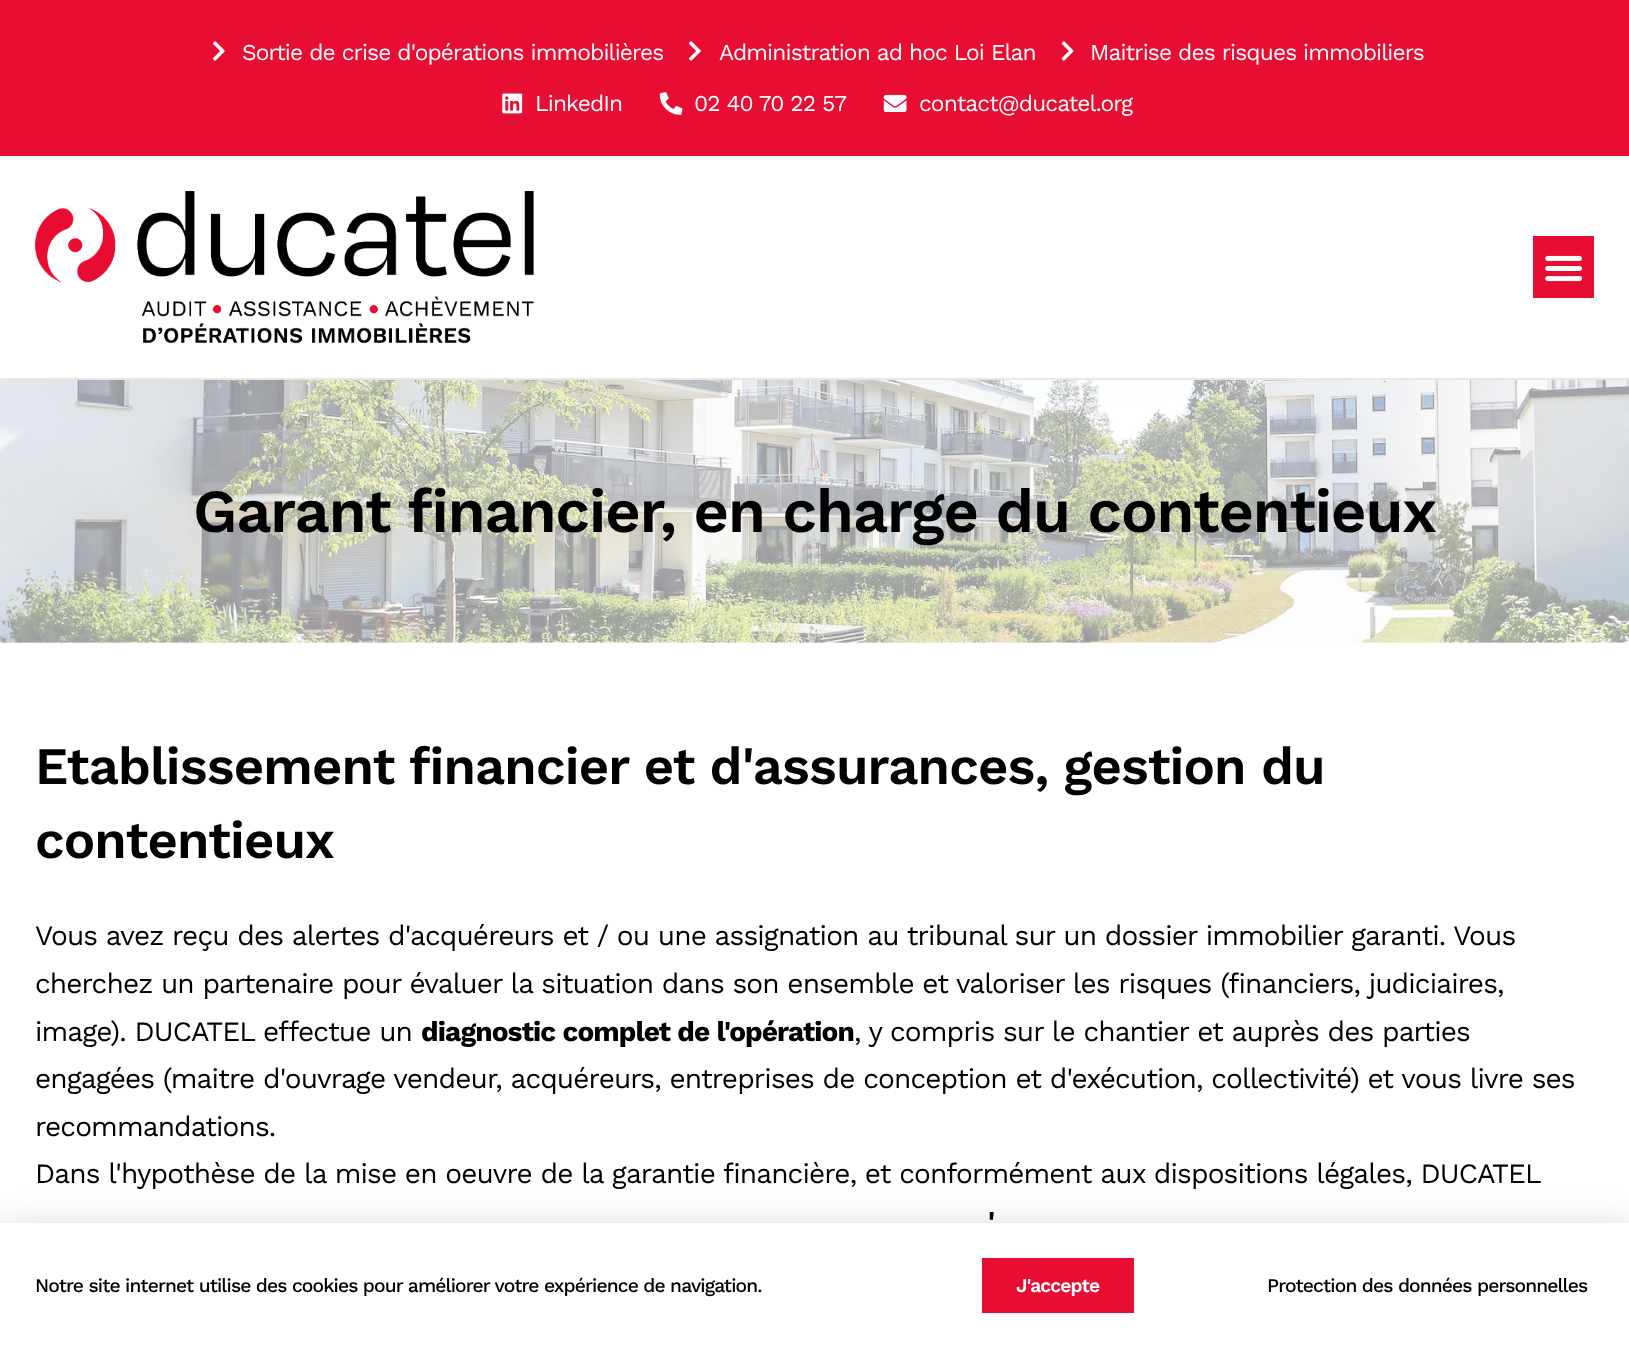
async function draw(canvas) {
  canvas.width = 1629
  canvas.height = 1347
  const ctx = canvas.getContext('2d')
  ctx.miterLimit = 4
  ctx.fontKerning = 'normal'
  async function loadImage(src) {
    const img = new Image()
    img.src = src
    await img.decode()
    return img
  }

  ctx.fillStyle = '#fff'
  ctx.fillRect(0, 0, 1629, 1347)
  ctx.fillStyle = '#e80d32'
  ctx.fillRect(0, 0, 1629, 156)
  ctx.drawImage(await loadImage('image0.png'), 213, 41, 12, 20)
  ctx.letterSpacing = '-0.88px'
  ctx.font = '22.75px Work Sans'
  ctx.fillStyle = '#fff'
  ctx.fillText('Sortie de crise d\'opérations immobilières', 242, 60)
  ctx.drawImage(await loadImage('image0.png'), 689, 41, 12, 20)
  ctx.fillText('Administration ad hoc Loi Elan', 719, 60)
  ctx.drawImage(await loadImage('image1.png'), 1061, 41, 13, 20)
  ctx.fillText('Maitrise des risques immobiliers', 1090, 60)
  ctx.drawImage(await loadImage('image2.png'), 502, 93, 21, 21)
  ctx.fillText('LinkedIn', 535, 111)
  ctx.drawImage(await loadImage('image3.png'), 659, 92, 24, 23)
  ctx.fillText('02 40 70 22 57', 694, 111)
  ctx.drawImage(await loadImage('image4.png'), 883, 94, 24, 18)
  ctx.fillText('contact@ducatel.org', 919, 111)
  ctx.fillStyle = '#e7e7e7'
  ctx.fillRect(0, 378, 1629, 2)
  ctx.drawImage(await loadImage('image5.png'), 35, 191, 499, 153)
  ctx.fillStyle = '#e80d32'
  ctx.fillRect(1533, 236, 61, 62)
  ctx.drawImage(await loadImage('image6.png'), 1545, 255, 37, 27)
  ctx.drawImage(await loadImage('image7.png'), 0, 380, 1629, 263)
  ctx.letterSpacing = '-1.05px'
  ctx.font = '600 61.25px Work Sans'
  ctx.fillStyle = '#000'
  ctx.fillText('Garant financier, en charge du contentieux', 193, 532)
  ctx.letterSpacing = '-0.88px'
  ctx.font = '600 52.5px Work Sans'
  ctx.fillText('Etablissement financier et d\'assurances, gestion du', 35, 784)
  ctx.fillText('contentieux', 35, 858)
  ctx.font = '28px Work Sans'
  ctx.fillText('Vous avez reçu des alertes d\'acquéreurs et / ou une assignation au tribunal sur un dossier immobilier garanti. Vous', 35, 945)
  ctx.fillText('cherchez un partenaire pour évaluer la situation dans son ensemble et valoriser les risques (financiers, judiciaires,', 35, 993)
  ctx.fillText('image). DUCATEL effectue un', 35, 1041)
  ctx.font = 'bold 28px Work Sans'
  ctx.fillText('diagnostic complet de l\'opération', 421, 1041)
  ctx.font = '28px Work Sans'
  ctx.fillText(', y compris sur le chantier et auprès des parties', 854, 1041)
  ctx.fillText('engagées (maitre d\'ouvrage vendeur, acquéreurs, entreprises de conception et d\'exécution, collectivité) et vous livre ses', 35, 1088)
  ctx.fillText('recommandations.', 35, 1136)
  ctx.fillText('Dans l\'hypothèse de la mise en oeuvre de la garantie financière, et conformément aux dispositions légales, DUCATEL', 35, 1183)
  ctx.font = 'bold 28px Work Sans'
  ctx.fillText('\'', 988, 1231)
  ctx.fillStyle = '#00000033'
  ctx.filter = 'blur(20px)'
  ctx.beginPath()
  ctx.rect(-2, 1232, 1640, 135)
  ctx.fill()
  ctx.filter = 'none'
  ctx.fillStyle = '#fff'
  ctx.fillRect(0, 1223, 1629, 124)
  ctx.font = '500 19.25px Work Sans'
  ctx.fillStyle = '#000'
  ctx.fillText('Notre site internet utilise des cookies pour améliorer votre expérience de navigation.', 35, 1292)
  ctx.fillStyle = '#e80d32'
  ctx.fillRect(982, 1258, 152, 55)
  ctx.font = '600 19.25px Work Sans'
  ctx.fillStyle = '#fff'
  ctx.fillText('J\'accepte', 1016, 1292)
  ctx.font = '500 19.25px Work Sans'
  ctx.fillStyle = '#000'
  ctx.fillText('Protection des données personnelles', 1267, 1292)
}

draw(document.querySelector('canvas'))
